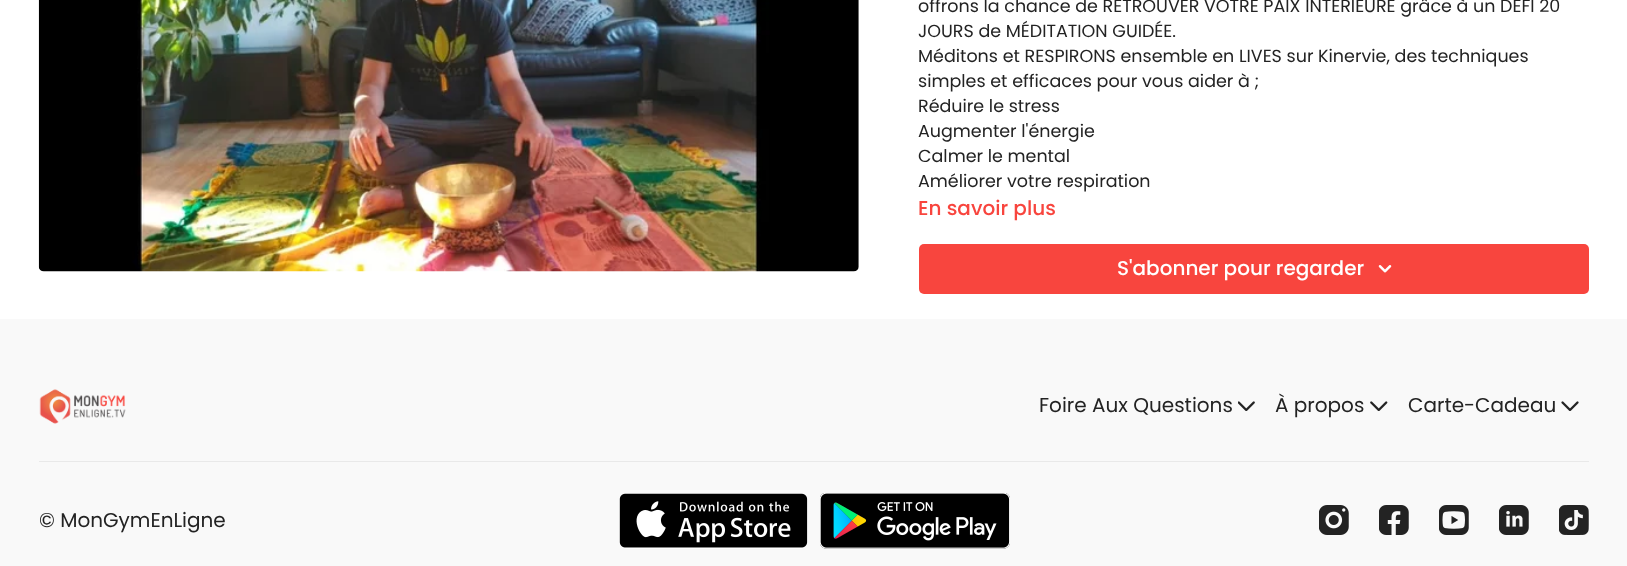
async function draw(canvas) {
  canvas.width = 1627
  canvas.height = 566
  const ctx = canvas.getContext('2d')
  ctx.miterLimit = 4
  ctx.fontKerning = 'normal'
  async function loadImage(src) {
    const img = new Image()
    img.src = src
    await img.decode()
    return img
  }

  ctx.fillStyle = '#fff'
  ctx.fillRect(0, 0, 1627, 566)
  ctx.drawImage(await loadImage('image0.png'), 38, 0, 821, 272)
  ctx.font = '17.5px Poppins'
  ctx.fillStyle = '#232323'
  ctx.fillText('offrons la chance de RETROUVER VOTRE PAIX INTÉRIEURE grâce à un DÉFI 20', 918, 12)
  ctx.fillText('JOURS de MÉDITATION GUIDÉE.', 918, 37)
  ctx.fillText('Méditons et RESPIRONS ensemble en LIVES sur Kinervie, des techniques', 918, 62)
  ctx.fillText('simples et efficaces pour vous aider à ;', 918, 87)
  ctx.fillText('Réduire le stress', 918, 112)
  ctx.fillText('Augmenter l\'énergie', 918, 137)
  ctx.fillText('Calmer le mental', 918, 162)
  ctx.fillText('Améliorer votre respiration', 918, 187)
  ctx.font = '500 20px Poppins'
  ctx.fillStyle = '#f8453e'
  ctx.fillText('En savoir plus', 918, 215)
  ctx.beginPath()
  ctx.roundRect(919, 244, 670, 50, 5)
  ctx.fill()
  ctx.fillStyle = '#fff'
  ctx.fillText('S\'abonner pour regarder', 1117, 275)
  ctx.drawImage(await loadImage('image1.png'), 1378, 265, 14, 8)
  ctx.fillStyle = '#f9f9f9'
  ctx.fillRect(0, 319, 1627, 247)
  ctx.drawImage(await loadImage('image2.png'), 39, 389, 87, 35)
  ctx.font = '20px Poppins'
  ctx.fillStyle = '#232323'
  ctx.fillText('Foire Aux Questions', 1039, 412)
  ctx.drawImage(await loadImage('image3.png'), 1238, 401, 17, 10)
  ctx.fillText('À propos', 1275, 412)
  ctx.drawImage(await loadImage('image4.png'), 1370, 401, 18, 10)
  ctx.fillText('Carte-Cadeau', 1408, 412)
  ctx.drawImage(await loadImage('image5.png'), 1561, 401, 18, 10)
  ctx.fillStyle = '#e9e9e9'
  ctx.fillRect(39, 461, 1550, 1)
  ctx.fillStyle = '#232323'
  ctx.fillText('© MonGymEnLigne', 39, 527)
  ctx.drawImage(await loadImage('image6.png'), 619, 493, 189, 56)
  ctx.drawImage(await loadImage('image7.png'), 820, 493, 190, 56)
  ctx.drawImage(await loadImage('image8.png'), 1319, 505, 30, 30)
  ctx.drawImage(await loadImage('image9.png'), 1379, 505, 30, 30)
  ctx.drawImage(await loadImage('image10.png'), 1439, 505, 30, 30)
  ctx.drawImage(await loadImage('image11.png'), 1499, 505, 30, 30)
  ctx.drawImage(await loadImage('image12.png'), 1559, 505, 30, 30)
}

draw(document.querySelector('canvas'))
